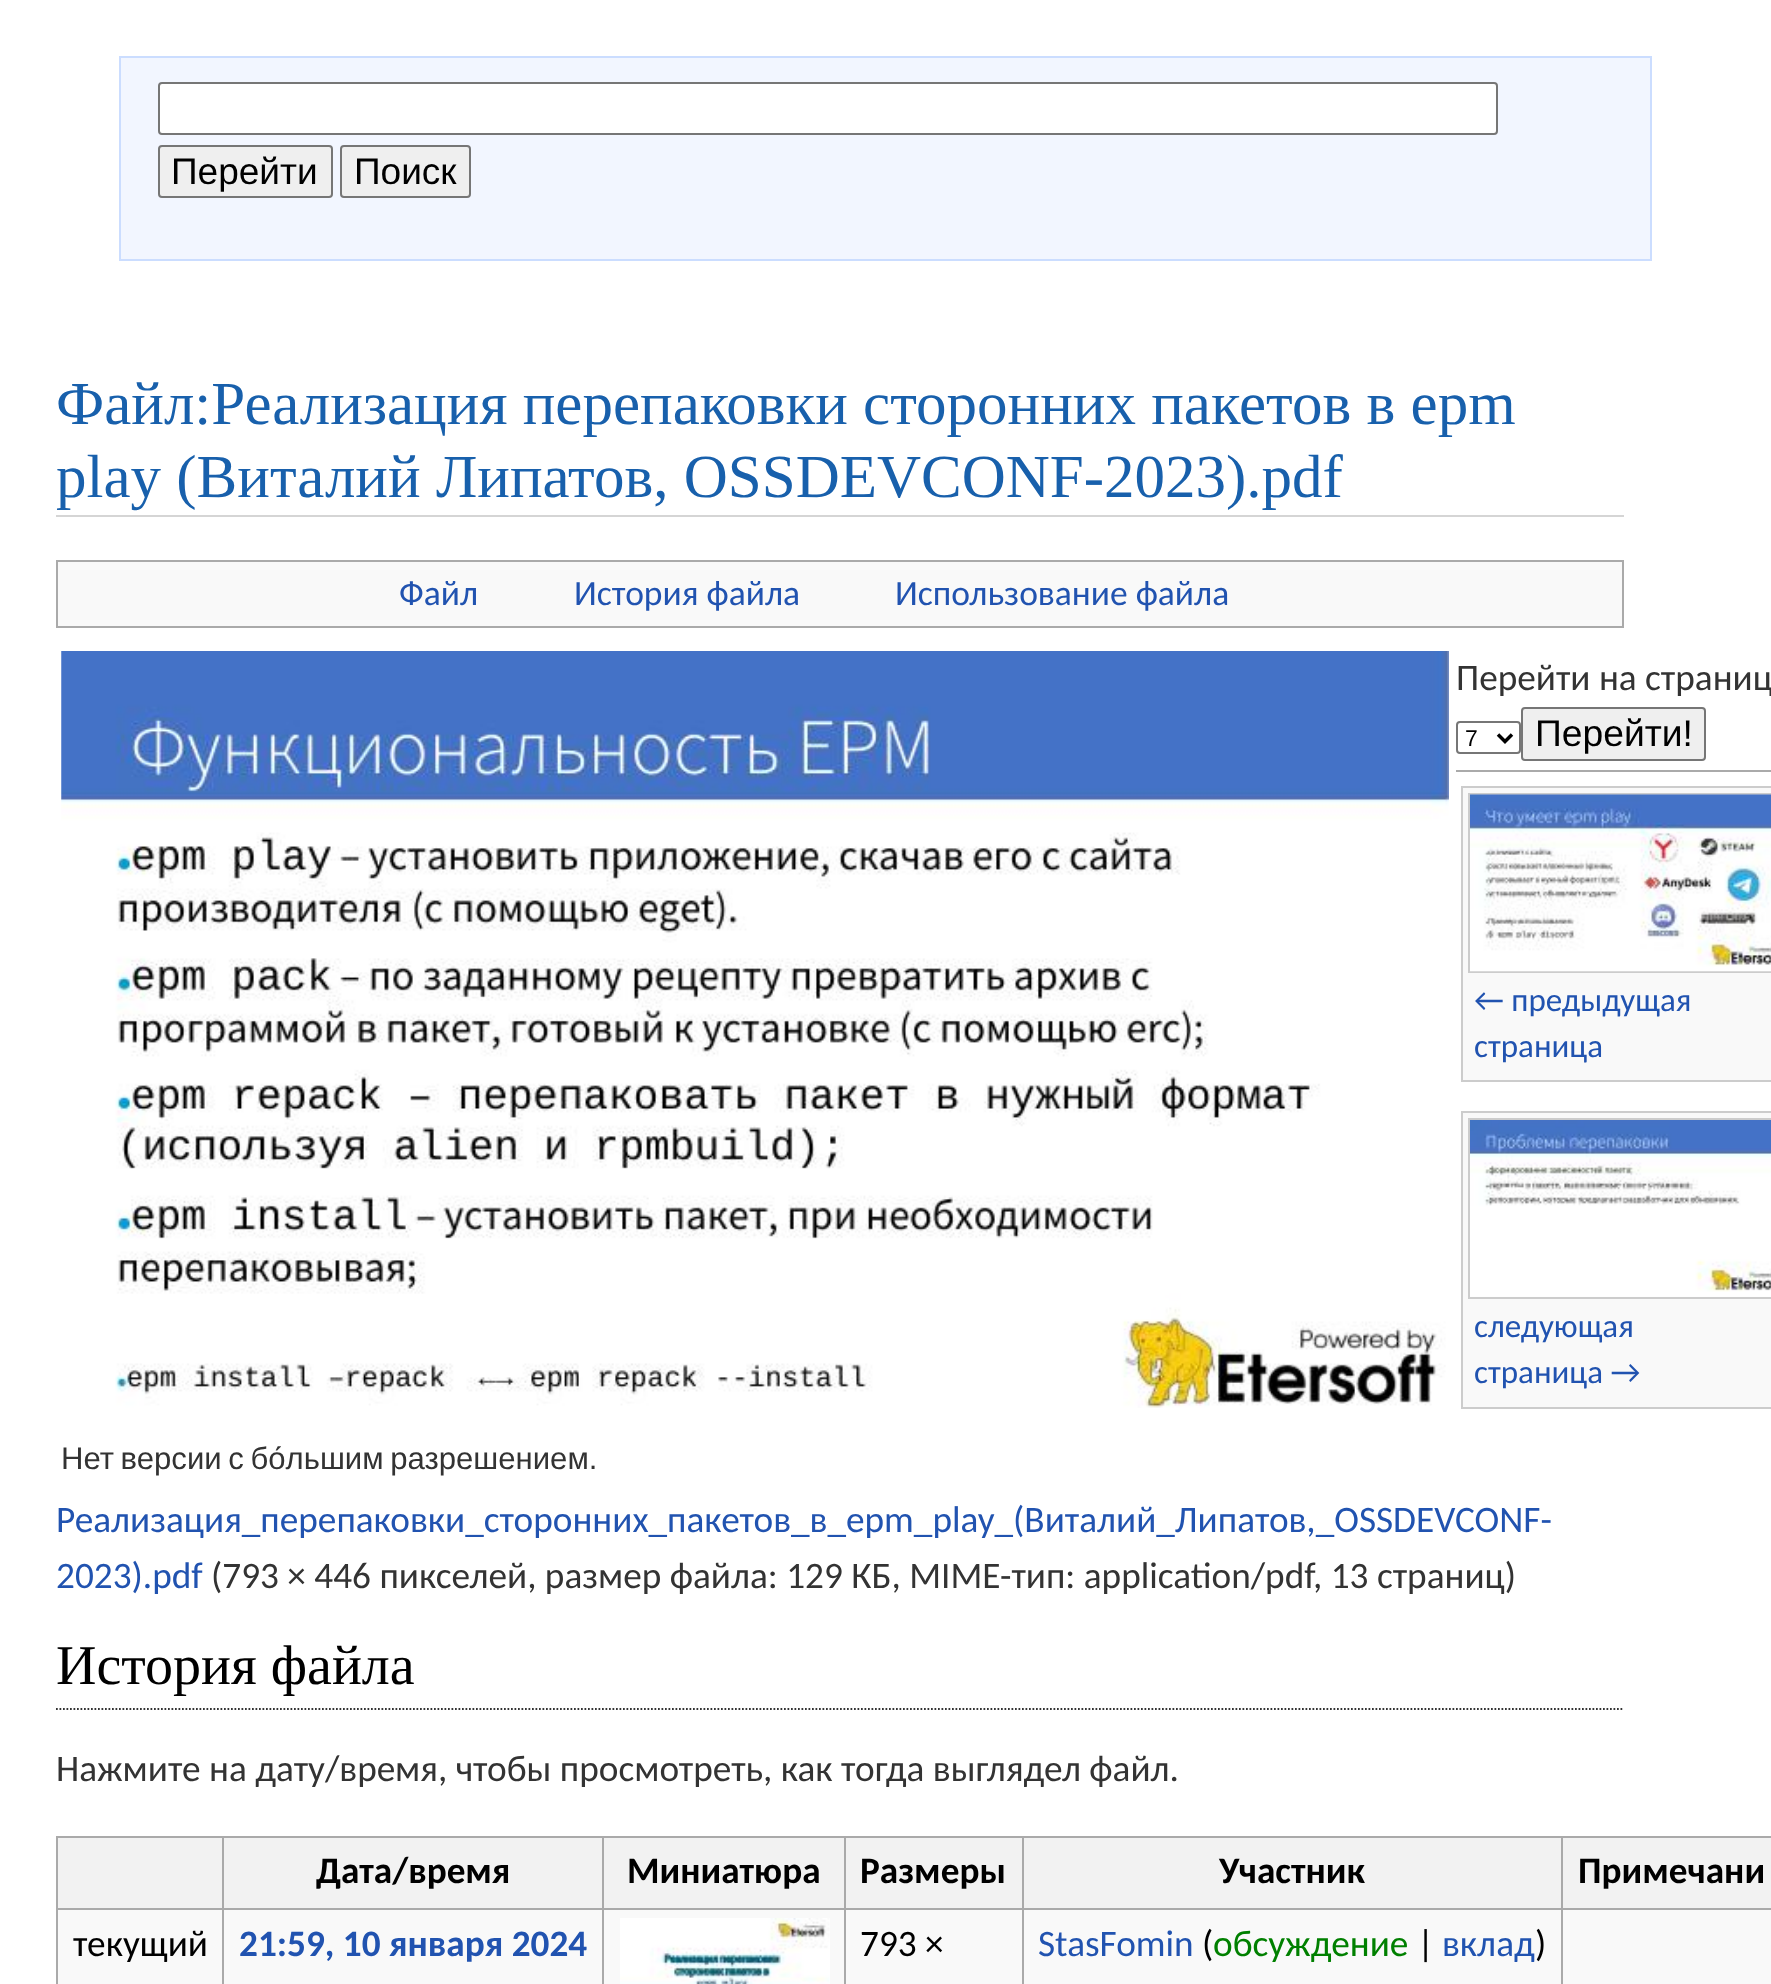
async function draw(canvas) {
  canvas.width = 1771
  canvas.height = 1984
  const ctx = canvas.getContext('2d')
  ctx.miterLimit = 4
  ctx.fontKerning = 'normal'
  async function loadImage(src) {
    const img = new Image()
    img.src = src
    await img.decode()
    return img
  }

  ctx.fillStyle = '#fff'
  ctx.fillRect(0, 0, 1771, 1984)
  ctx.fillStyle = '#f2f6ff'
  ctx.beginPath()
  ctx.rect(120, 57, 1531, 203)
  ctx.fill()
  ctx.strokeStyle = '#cbddff'
  ctx.lineWidth = 2
  ctx.stroke()
  ctx.fillStyle = '#fff'
  ctx.beginPath()
  ctx.roundRect(159, 83, 1338, 51, 3)
  ctx.fill()
  ctx.strokeStyle = '#767676'
  ctx.stroke()
  ctx.fillStyle = '#efefef'
  ctx.beginPath()
  ctx.roundRect(159, 146, 173, 51, 3)
  ctx.fill()
  ctx.stroke()
  ctx.font = '37px Liberation Sans'
  ctx.fillStyle = '#000'
  ctx.fillText('Перейти', 171, 184)
  ctx.fillStyle = '#efefef'
  ctx.beginPath()
  ctx.roundRect(341, 146, 129, 51, 3)
  ctx.fill()
  ctx.stroke()
  ctx.fillStyle = '#000'
  ctx.fillText('Поиск', 354, 184)
  ctx.fillStyle = '#d5d5d5'
  ctx.fillRect(56, 515, 1568, 2)
  ctx.font = '61px Liberation Serif'
  ctx.fillStyle = '#1860ac'
  ctx.fillText('Файл:Реализация перепаковки сторонних пакетов в epm', 56, 424)
  ctx.fillText('play (Виталий Липатов, OSSDEVCONF-2023).pdf', 56, 497)
  ctx.fillStyle = '#f9f9f9'
  ctx.beginPath()
  ctx.rect(57, 561, 1566, 66)
  ctx.fill()
  ctx.strokeStyle = '#aaa'
  ctx.stroke()
  ctx.font = '35.5px Carlito'
  ctx.fillStyle = '#2153b0'
  ctx.fillText('Файл', 399, 605)
  ctx.fillText('История файла', 574, 605)
  ctx.fillText('Использование файла', 895, 605)
  ctx.font = '37.25px Carlito'
  ctx.fillStyle = '#333'
  ctx.fillText('Перейти на страниц', 1456, 690)
  ctx.beginPath()
  ctx.roundRect(1457, 722, 63, 31, 3)
  ctx.strokeStyle = '#767676'
  ctx.stroke()
  ctx.beginPath()
  ctx.moveTo(1498, 734.5)
  ctx.lineTo(1505, 741.5)
  ctx.lineTo(1512, 734.5)
  ctx.strokeStyle = '#000'
  ctx.lineWidth = 3.5
  ctx.stroke()
  ctx.font = '23px Liberation Sans'
  ctx.fillStyle = '#000'
  ctx.fillText('7', 1465, 746)
  ctx.fillStyle = '#efefef'
  ctx.beginPath()
  ctx.roundRect(1522, 708, 183, 52, 3)
  ctx.fill()
  ctx.strokeStyle = '#767676'
  ctx.lineWidth = 2
  ctx.stroke()
  ctx.font = '37.25px Liberation Sans'
  ctx.fillStyle = '#000'
  ctx.fillText('Перейти!', 1535, 746)
  ctx.fillStyle = '#aaa'
  ctx.fillRect(1456, 770, 315, 2)
  ctx.fillStyle = '#f9f9f9'
  ctx.beginPath()
  ctx.rect(1462, 787, 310, 294)
  ctx.fill()
  ctx.strokeStyle = '#ccc'
  ctx.stroke()
  ctx.strokeRect(1469, 794, 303, 178)
  ctx.drawImage(await loadImage('image0.png'), 1470, 794, 301, 178)
  ctx.font = '33px Carlito'
  ctx.fillStyle = '#2153b0'
  ctx.fillText('← предыдущая', 1474, 1011)
  ctx.fillText('страница', 1474, 1057)
  ctx.fillStyle = '#f9f9f9'
  ctx.beginPath()
  ctx.rect(1462, 1112, 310, 296)
  ctx.fill()
  ctx.stroke()
  ctx.strokeRect(1469, 1119, 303, 179)
  ctx.drawImage(await loadImage('image1.png'), 1470, 1120, 301, 177)
  ctx.fillStyle = '#2153b0'
  ctx.fillText('следующая', 1474, 1337)
  ctx.fillText('страница →', 1474, 1383)
  ctx.drawImage(await loadImage('image2.png'), 61, 651, 1388, 757)
  ctx.wordSpacing = '-2px'
  ctx.font = '31.1px Liberation Sans'
  ctx.fillStyle = '#333'
  ctx.fillText('Нет версии с бо́льшим разрешением.', 61, 1469)
  ctx.wordSpacing = '0px'
  ctx.font = '37.25px Carlito'
  ctx.fillStyle = '#2153b0'
  ctx.fillText('Реализация_перепаковки_сторонних_пакетов_в_epm_play_(Виталий_Липатов,_OSSDEVCONF-', 56, 1532)
  ctx.fillText('2023).pdf', 56, 1588)
  ctx.fillStyle = '#333'
  ctx.fillText('(793 × 446 пикселей, размер файла: 129 КБ, MIME-тип: application/pdf', 211, 1588)
  ctx.fillText(', 13 страниц)', 1313, 1588)
  ctx.beginPath()
  ctx.moveTo(56, 1709)
  ctx.lineTo(1624, 1709)
  ctx.strokeStyle = '#333'
  ctx.lineWidth = 1.8
  ctx.setLineDash([1.75, 1.75])
  ctx.stroke()
  ctx.font = '56px Liberation Serif'
  ctx.fillStyle = '#000'
  ctx.fillText('История файла', 56, 1684)
  ctx.font = '37.25px Carlito'
  ctx.fillStyle = '#333'
  ctx.fillText('Нажмите на дату/время, чтобы просмотреть, как тогда выглядел файл.', 56, 1781)
  ctx.fillStyle = '#f9f9f9'
  ctx.fillRect(58, 1910, 1713, 74)
  ctx.fillStyle = '#aaa'
  ctx.fillRect(56, 1836, 1715, 2)
  ctx.fillRect(56, 1836, 2, 148)
  ctx.fillStyle = '#f2f2f2'
  ctx.fillRect(58, 1838, 164, 70)
  ctx.fillRect(224, 1838, 378, 70)
  ctx.fillStyle = '#aaa'
  ctx.fillRect(1561, 1908, 210, 2)
  ctx.fillRect(1561, 1908, 2, 76)
  ctx.fillRect(1022, 1908, 541, 2)
  ctx.fillRect(1022, 1908, 2, 76)
  ctx.fillRect(844, 1908, 180, 2)
  ctx.fillRect(844, 1908, 2, 76)
  ctx.fillRect(602, 1908, 243, 2)
  ctx.fillRect(602, 1908, 2, 76)
  ctx.fillRect(222, 1908, 382, 2)
  ctx.fillRect(222, 1908, 2, 76)
  ctx.fillRect(56, 1908, 168, 2)
  ctx.fillRect(222, 1836, 2, 73)
  ctx.font = 'bold 37.25px Carlito'
  ctx.fillStyle = '#000'
  ctx.fillText('Дата/время', 316, 1883)
  ctx.fillStyle = '#f2f2f2'
  ctx.fillRect(604, 1838, 240, 70)
  ctx.fillStyle = '#aaa'
  ctx.fillRect(602, 1836, 2, 73)
  ctx.fillStyle = '#000'
  ctx.fillText('Миниатюра', 627, 1883)
  ctx.fillStyle = '#f2f2f2'
  ctx.fillRect(846, 1838, 176, 70)
  ctx.fillStyle = '#aaa'
  ctx.fillRect(844, 1836, 2, 73)
  ctx.fillStyle = '#000'
  ctx.fillText('Размеры', 860, 1883)
  ctx.fillStyle = '#f2f2f2'
  ctx.fillRect(1024, 1838, 537, 70)
  ctx.fillStyle = '#aaa'
  ctx.fillRect(1022, 1836, 2, 73)
  ctx.fillStyle = '#000'
  ctx.fillText('Участник', 1219, 1883)
  ctx.fillStyle = '#f2f2f2'
  ctx.fillRect(1563, 1838, 208, 70)
  ctx.fillStyle = '#aaa'
  ctx.fillRect(1561, 1836, 2, 73)
  ctx.fillStyle = '#000'
  ctx.fillText('Примечани', 1578, 1883)
  ctx.font = '37.25px Carlito'
  ctx.fillText('текущий', 73, 1956)
  ctx.font = 'bold 37.25px Carlito'
  ctx.fillStyle = '#2153b0'
  ctx.fillText('21:59, 10 января 2024', 239, 1956)
  ctx.fillStyle = '#fff'
  ctx.fillRect(829, 1918, 1, 66)
  ctx.drawImage(await loadImage('image3.png'), 620, 1918, 210, 66)
  ctx.font = '37.25px Carlito'
  ctx.fillStyle = '#000'
  ctx.fillText('793 ×', 860, 1956)
  ctx.fillStyle = '#2153b0'
  ctx.fillText('StasFomin', 1038, 1956)
  ctx.fillStyle = '#000'
  ctx.fillText('(', 1202, 1956)
  ctx.fillStyle = '#008000'
  ctx.fillText('обсуждение', 1213, 1956)
  ctx.fillStyle = '#000'
  ctx.fillText('|', 1417, 1956)
  ctx.fillStyle = '#2153b0'
  ctx.fillText('вклад', 1442, 1956)
  ctx.fillStyle = '#000'
  ctx.fillText(')', 1535, 1956)
}

draw(document.querySelector('canvas'))
